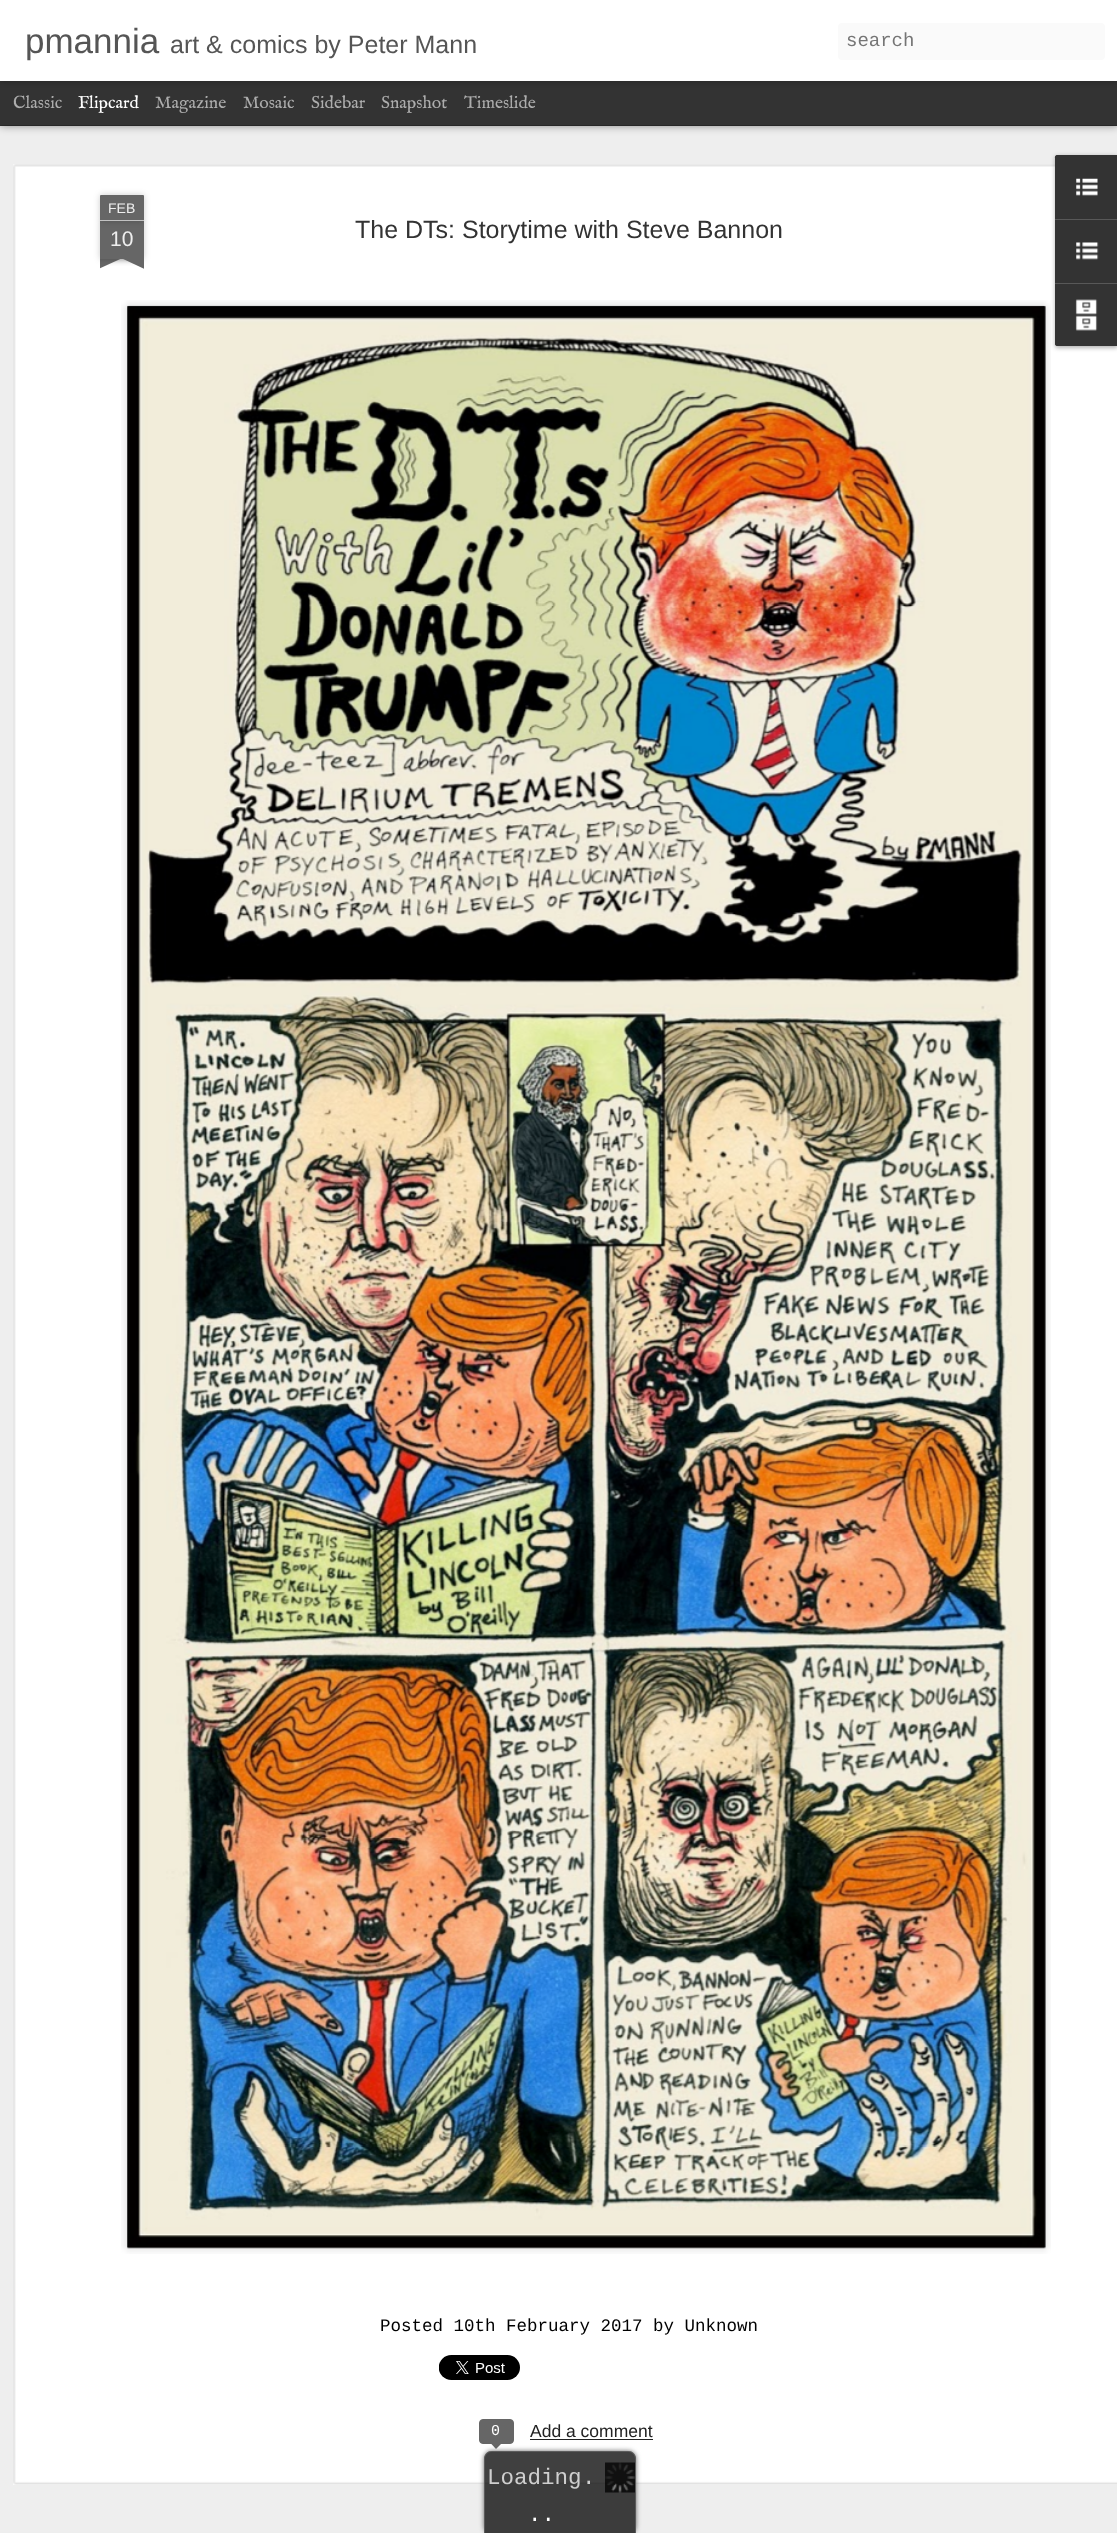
async function draw(canvas) {
  canvas.width = 1117
  canvas.height = 2533
  const ctx = canvas.getContext('2d')
  ctx.miterLimit = 4
  ctx.fontKerning = 'normal'
  async function loadImage(src) {
    const img = new Image()
    img.src = src
    await img.decode()
    return img
  }

  ctx.fillStyle = '#333'
  ctx.fillRect(0, 0, 1117, 2533)
  ctx.fillStyle = '#eee'
  ctx.fillRect(0, 126, 1117, 2407)
  ctx.fillStyle = '#00000080'
  ctx.filter = 'blur(5px)'
  ctx.beginPath()
  ctx.rect(0, 81, 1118, 44)
  ctx.fill()
  ctx.filter = 'none'
  ctx.fillStyle = '#333'
  ctx.fillRect(0, 81, 1117, 44)
  ctx.fillStyle = '#0000004d'
  ctx.filter = 'blur(3px)'
  ctx.beginPath()
  ctx.rect(0, 0, 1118, 81)
  ctx.fill()
  ctx.filter = 'none'
  ctx.fillStyle = '#fff'
  ctx.fillRect(0, 0, 1117, 81)
  ctx.font = '35px Liberation Sans'
  ctx.fillStyle = '#555'
  ctx.fillText('pmannia', 25, 53)
  ctx.font = '25px Liberation Sans'
  ctx.fillText('art & comics by Peter Mann', 170, 53)
  ctx.fillStyle = '#fafafa'
  ctx.beginPath()
  ctx.roundRect(838, 23, 267, 37, 4)
  ctx.fill()
  ctx.font = '19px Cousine'
  ctx.fillStyle = '#757575'
  ctx.fillText('search', 846, 46)
  ctx.font = '17.5px IM FELL English'
  ctx.fillStyle = '#adadad'
  ctx.fillText('Classic', 13, 108)
  ctx.fillStyle = '#fff'
  ctx.fillText('Flipcard', 78, 108)
  ctx.fillStyle = '#adadad'
  ctx.fillText('Magazine', 155, 108)
  ctx.fillText('Mosaic', 243, 108)
  ctx.fillText('Sidebar', 311, 108)
  ctx.fillText('Snapshot', 381, 108)
  ctx.fillText('Timeslide', 464, 108)
  ctx.fillStyle = '#fff'
  ctx.fillRect(13, 164, 1104, 2321)
  ctx.drawImage(await loadImage('image0.png'), 13, 164, 1104, 2321)
  ctx.fillStyle = '#00000033'
  ctx.filter = 'blur(3px)'
  ctx.beginPath()
  ctx.rect(100, 221, 44, 38)
  ctx.fill()
  ctx.filter = 'none'
  ctx.fillStyle = '#666'
  ctx.fillRect(100, 221, 44, 38)
  ctx.fillStyle = '#00000033'
  ctx.filter = 'blur(3px)'
  ctx.beginPath()
  ctx.roundRect(100, 195, 44, 26, 1)
  ctx.fill()
  ctx.filter = 'none'
  ctx.fillStyle = '#666'
  ctx.beginPath()
  ctx.roundRect(100, 195, 44, 26, [1, 1, 0, 0])
  ctx.fill()
  ctx.fillStyle = '#c2c2c2'
  ctx.fillRect(100, 220, 44, 1)
  ctx.font = '14px Liberation Sans'
  ctx.fillStyle = '#eee'
  ctx.fillText('FEB', 108, 213)
  ctx.font = '21px Liberation Sans'
  ctx.fillText('10', 110, 246)
  ctx.save()
  ctx.beginPath()
  ctx.rect(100, 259, 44, 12)
  ctx.clip()
  ctx.fillStyle = '#00000033'
  ctx.filter = 'blur(3px)'
  ctx.beginPath()
  ctx.rect(89, 246, 62, 13)
  ctx.fill()
  ctx.filter = 'none'
  ctx.restore()
  ctx.save()
  ctx.beginPath()
  ctx.rect(100, 259, 44, 12)
  ctx.clip()
  ctx.fillStyle = '#666'
  ctx.beginPath()
  ctx.moveTo(89, 260)
  ctx.lineTo(146, 234)
  ctx.lineTo(151, 245)
  ctx.lineTo(94, 271)
  ctx.closePath()
  ctx.fill()
  ctx.restore()
  ctx.save()
  ctx.beginPath()
  ctx.rect(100, 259, 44, 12)
  ctx.clip()
  ctx.fillStyle = '#00000033'
  ctx.filter = 'blur(3px)'
  ctx.beginPath()
  ctx.rect(93, 246, 62, 13)
  ctx.fill()
  ctx.filter = 'none'
  ctx.restore()
  ctx.save()
  ctx.beginPath()
  ctx.rect(100, 259, 44, 12)
  ctx.clip()
  ctx.fillStyle = '#666'
  ctx.beginPath()
  ctx.moveTo(98, 234)
  ctx.lineTo(155, 260)
  ctx.lineTo(149, 271)
  ctx.lineTo(93, 245)
  ctx.closePath()
  ctx.fill()
  ctx.restore()
  ctx.font = '25px Liberation Sans'
  ctx.fillStyle = '#333'
  ctx.fillText('The DTs: Storytime with Steve Bannon', 355, 238)
  ctx.drawImage(await loadImage('image1.png'), 121, 300, 930, 1954)
  ctx.drawImage(await loadImage('image2.png'), 127, 305, 919, 1944)
  ctx.font = '17.5px Cousine'
  ctx.fillStyle = '#000'
  ctx.fillText('Posted 10th February 2017 by Unknown', 380, 2331)
  ctx.drawImage(await loadImage('image3.png'), 439, 2355, 81, 25)
  ctx.fillStyle = '#666'
  ctx.beginPath()
  ctx.roundRect(479.5, 2419.5, 34, 24, 3.5)
  ctx.fill()
  ctx.strokeStyle = '#666'
  ctx.stroke()
  ctx.font = '15px Cousine'
  ctx.fillStyle = '#fff'
  ctx.fillText('0', 491, 2435)
  ctx.fillStyle = '#666'
  ctx.beginPath()
  ctx.moveTo(490, 2442.5)
  ctx.lineTo(502.5, 2442.5)
  ctx.lineTo(496, 2449)
  ctx.closePath()
  ctx.fill()
  ctx.font = '17.5px Liberation Sans'
  ctx.fillStyle = '#222'
  ctx.fillText('Add a comment', 530, 2437)
  ctx.fillRect(530, 2439, 123, 1)
  ctx.fillStyle = '#0000004d'
  ctx.filter = 'blur(2px)'
  ctx.beginPath()
  ctx.roundRect(1055, 156, 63, 192, 2.5)
  ctx.fill()
  ctx.filter = 'none'
  ctx.fillStyle = '#333'
  ctx.beginPath()
  ctx.moveTo(1057.5, 155)
  ctx.lineTo(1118, 155)
  ctx.lineTo(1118, 346)
  ctx.lineTo(1057.5, 346)
  ctx.bezierCurveTo(1056, 346, 1055, 345, 1055, 343.5)
  ctx.lineTo(1055, 157.5)
  ctx.bezierCurveTo(1055, 156, 1056, 155, 1057.5, 155)
  ctx.closePath()
  ctx.fill()
  ctx.beginPath()
  ctx.moveTo(1057.5, 155)
  ctx.lineTo(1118, 155)
  ctx.lineTo(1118, 219)
  ctx.lineTo(1055, 219)
  ctx.lineTo(1055, 157.5)
  ctx.bezierCurveTo(1055, 156, 1056, 155, 1057.5, 155)
  ctx.closePath()
  ctx.fill()
  ctx.drawImage(await loadImage('image4.png'), 1076, 178, 22, 18)
  ctx.fillStyle = '#585858'
  ctx.fillRect(1055, 219, 62, 1)
  ctx.drawImage(await loadImage('image5.png'), 1076, 242, 23, 18)
  ctx.fillStyle = '#333'
  ctx.beginPath()
  ctx.moveTo(1055, 283)
  ctx.lineTo(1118, 283)
  ctx.lineTo(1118, 346)
  ctx.lineTo(1057.5, 346)
  ctx.bezierCurveTo(1056, 346, 1055, 345, 1055, 343.5)
  ctx.closePath()
  ctx.fill()
  ctx.fillStyle = '#585858'
  ctx.fillRect(1055, 283, 62, 1)
  ctx.drawImage(await loadImage('image6.png'), 1075, 299, 23, 32)
  ctx.save()
  ctx.beginPath()
  ctx.moveTo(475, 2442)
  ctx.lineTo(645, 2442)
  ctx.lineTo(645, 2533)
  ctx.lineTo(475, 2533)
  ctx.closePath()
  ctx.moveTo(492, 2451)
  ctx.lineTo(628, 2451)
  ctx.bezierCurveTo(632.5, 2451, 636, 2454.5, 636, 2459)
  ctx.lineTo(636, 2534)
  ctx.lineTo(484, 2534)
  ctx.lineTo(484, 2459)
  ctx.bezierCurveTo(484, 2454.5, 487.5, 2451, 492, 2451)
  ctx.closePath()
  ctx.clip('evenodd')
  ctx.fillStyle = '#333333bf'
  ctx.filter = 'blur(2.5px)'
  ctx.beginPath()
  ctx.roundRect(484, 2451, 152, 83, 8)
  ctx.fill()
  ctx.filter = 'none'
  ctx.restore()
  ctx.fillStyle = '#000000bf'
  ctx.beginPath()
  ctx.moveTo(492, 2451)
  ctx.lineTo(628, 2451)
  ctx.bezierCurveTo(632.5, 2451, 636, 2454.5, 636, 2459)
  ctx.lineTo(636, 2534)
  ctx.lineTo(484, 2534)
  ctx.lineTo(484, 2459)
  ctx.bezierCurveTo(484, 2454.5, 487.5, 2451, 492, 2451)
  ctx.closePath()
  ctx.fill()
  ctx.fillStyle = '#666666bf'
  ctx.beginPath()
  ctx.moveTo(491, 2451)
  ctx.lineTo(629, 2451)
  ctx.bezierCurveTo(633, 2451, 636, 2455, 636, 2459)
  ctx.lineTo(636, 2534)
  ctx.lineTo(484, 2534)
  ctx.lineTo(484, 2459)
  ctx.bezierCurveTo(484, 2455, 487, 2451, 491, 2451)
  ctx.closePath()
  ctx.moveTo(491, 2452)
  ctx.lineTo(629, 2452)
  ctx.bezierCurveTo(632, 2452, 635, 2455, 635, 2459)
  ctx.lineTo(635, 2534)
  ctx.lineTo(485, 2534)
  ctx.lineTo(485, 2459)
  ctx.bezierCurveTo(485, 2455, 488, 2452, 491, 2452)
  ctx.closePath()
  ctx.fill('evenodd')
  ctx.drawImage(await loadImage('image7.png'), 605, 2462, 30, 31)
  ctx.font = '22.5px Cousine'
  ctx.fillStyle = '#cfcfcf'
  ctx.fillText('Loading', 487, 2484)
  ctx.fillText('.', 582, 2484)
  ctx.fillStyle = '#fff'
  ctx.fillText('..', 528, 2521)
}

draw(document.querySelector('canvas'))
